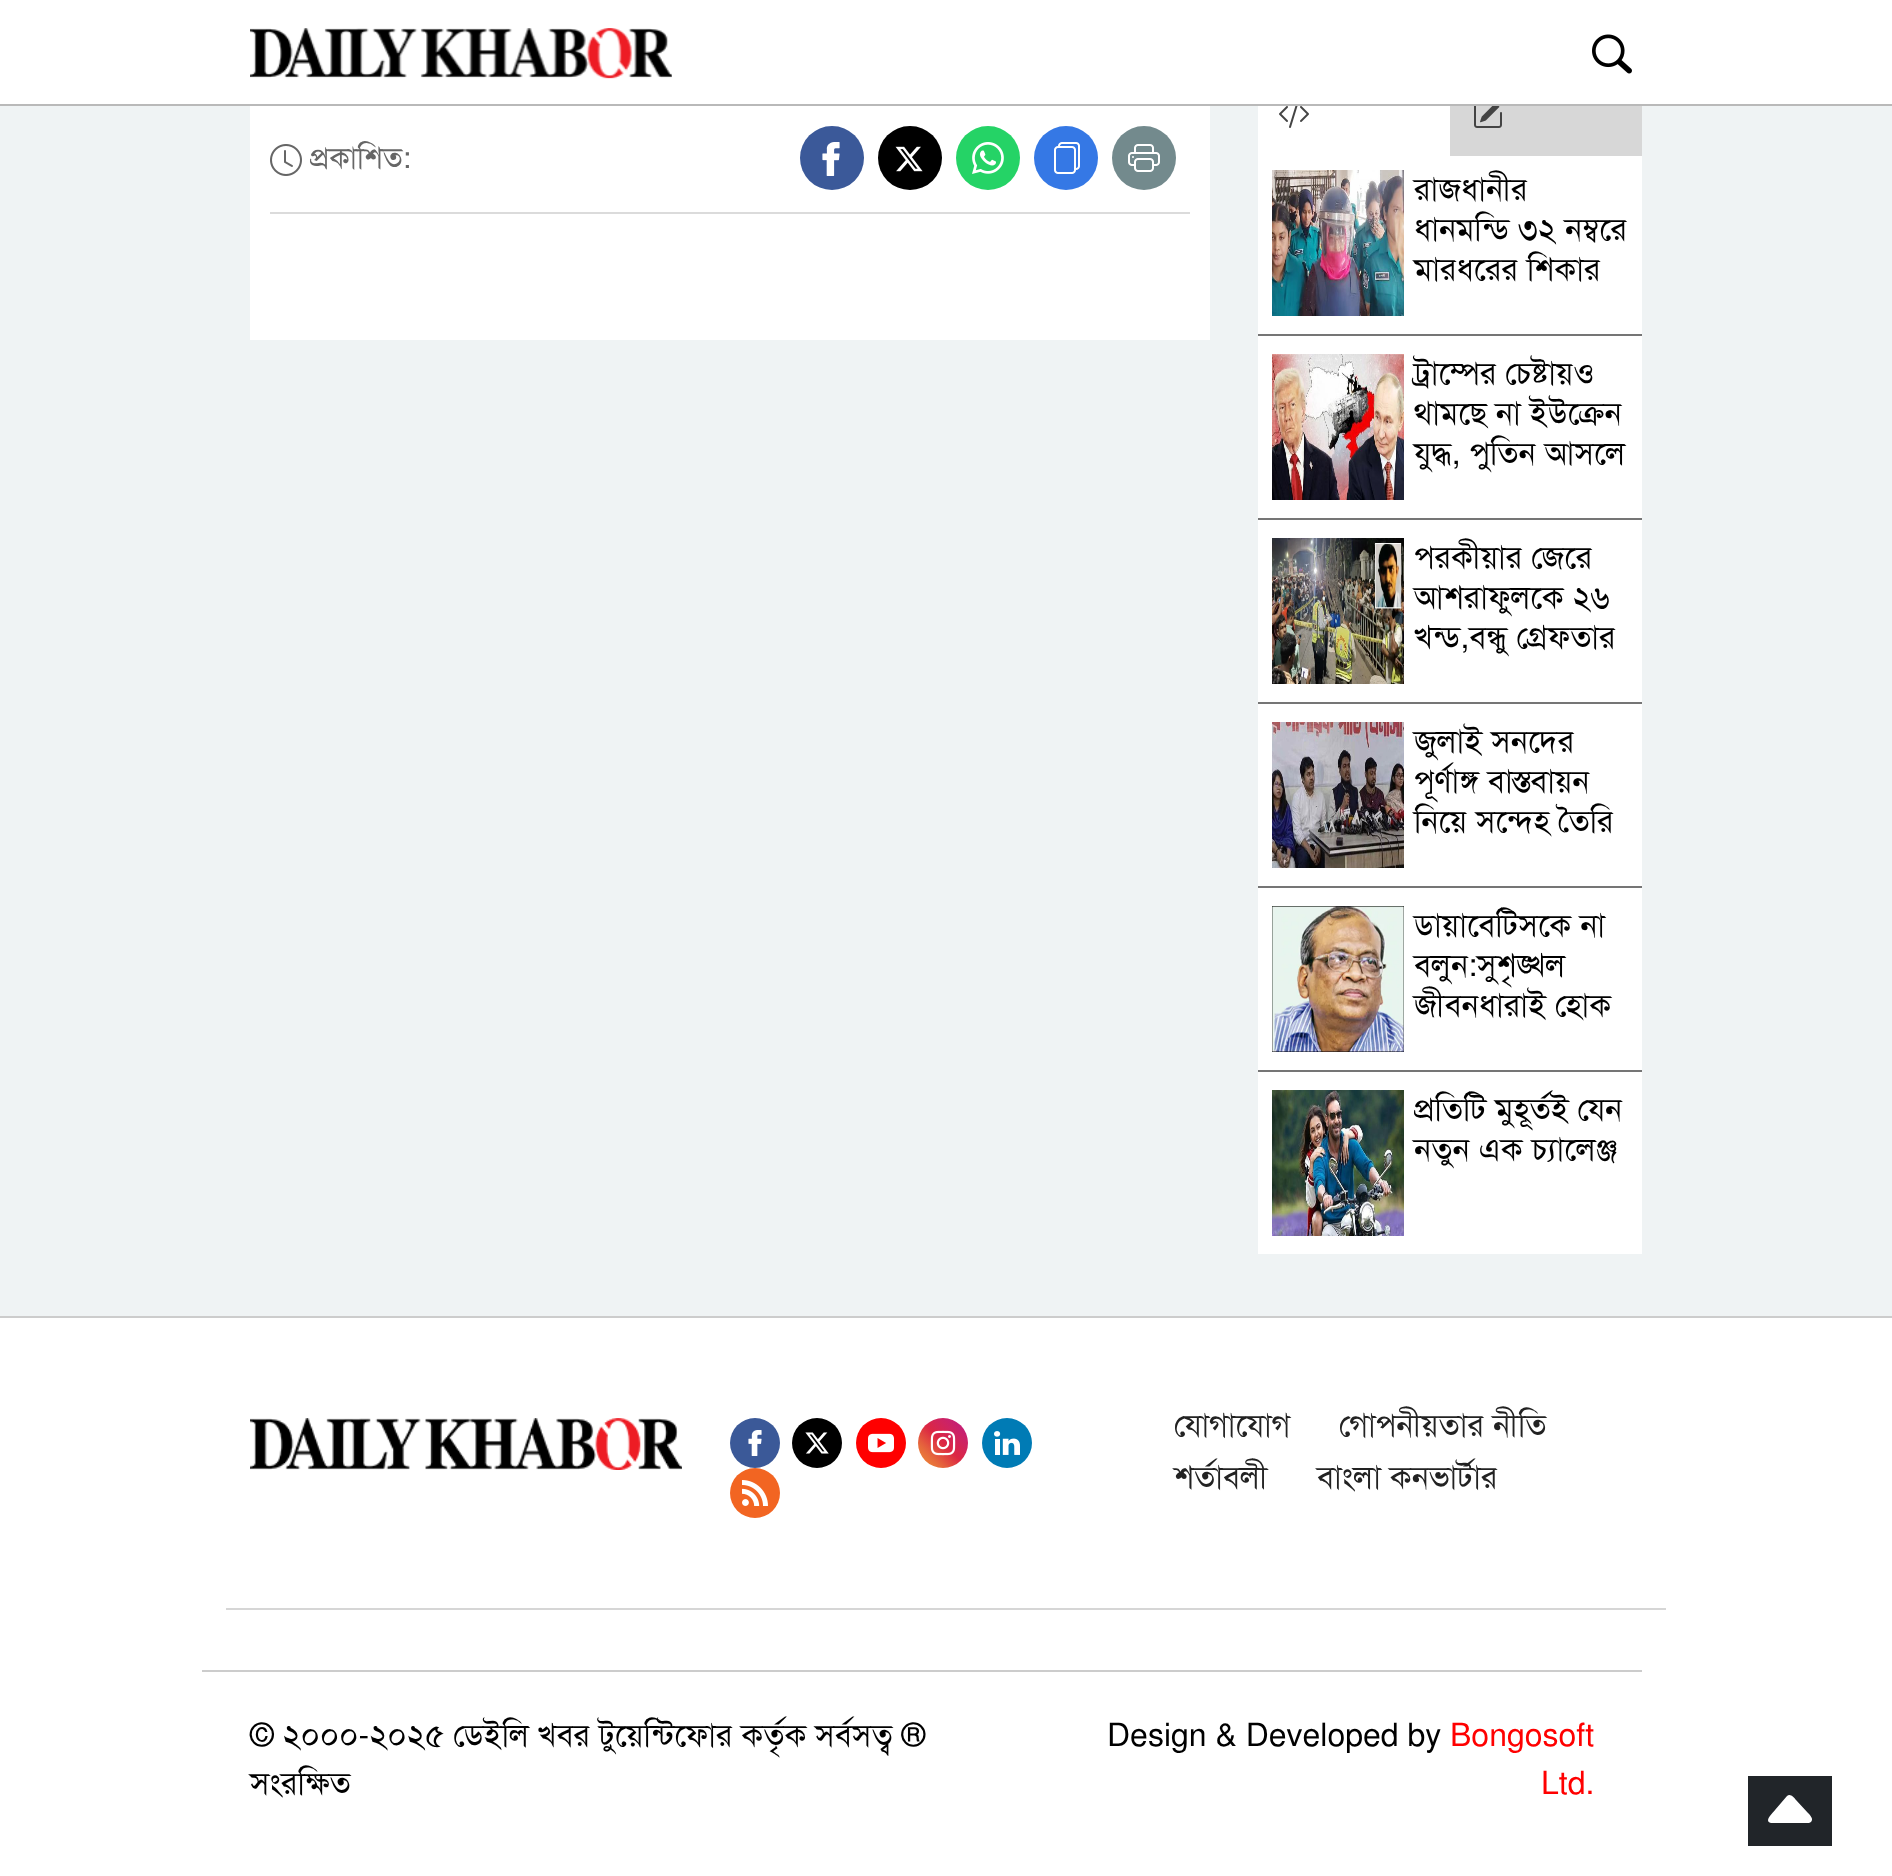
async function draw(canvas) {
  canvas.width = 1892
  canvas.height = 1876
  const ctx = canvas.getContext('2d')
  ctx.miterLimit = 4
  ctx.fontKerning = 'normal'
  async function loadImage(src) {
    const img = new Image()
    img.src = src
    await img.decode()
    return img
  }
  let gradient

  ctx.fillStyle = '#eff3f4'
  ctx.fillRect(0, 0, 1892, 1876)
  ctx.fillStyle = '#fff'
  ctx.fillRect(0, 0, 1892, 104)
  ctx.fillStyle = '#b9b9b9'
  ctx.fillRect(0, 104, 1892, 2)
  ctx.drawImage(await loadImage('image0.png'), 250, 28, 422, 51)
  ctx.drawImage(await loadImage('image1.png'), 1592, 34, 40, 40)
  ctx.fillStyle = '#fff'
  ctx.fillRect(250, 106, 960, 234)
  ctx.fillStyle = '#dbdbdb'
  ctx.fillRect(270, 212, 920, 2)
  ctx.drawImage(await loadImage('image2.png'), 270, 144, 32, 32)
  ctx.font = '30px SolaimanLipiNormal'
  ctx.fillStyle = '#666'
  ctx.fillText('প্রকাশিত:', 310, 168)
  ctx.fillStyle = '#3b5999'
  ctx.beginPath()
  ctx.arc(832, 158, 32, 0, 2 * Math.PI)
  ctx.fill()
  ctx.drawImage(await loadImage('image3.png'), 822, 142, 18, 34)
  ctx.fillStyle = '#000'
  ctx.beginPath()
  ctx.arc(910, 158, 32, 0, 2 * Math.PI)
  ctx.fill()
  ctx.drawImage(await loadImage('image4.png'), 895, 146, 28, 26)
  ctx.fillStyle = '#25d366'
  ctx.beginPath()
  ctx.arc(988, 158, 32, 0, 2 * Math.PI)
  ctx.fill()
  ctx.drawImage(await loadImage('image5.png'), 972, 142, 32, 32)
  ctx.fillStyle = '#3578e5'
  ctx.beginPath()
  ctx.arc(1066, 158, 32, 0, 2 * Math.PI)
  ctx.fill()
  ctx.drawImage(await loadImage('image6.png'), 1054, 142, 26, 32)
  ctx.fillStyle = '#738a8d'
  ctx.beginPath()
  ctx.arc(1144, 158, 32, 0, 2 * Math.PI)
  ctx.fill()
  ctx.drawImage(await loadImage('image7.png'), 1128, 144, 32, 28)
  ctx.fillStyle = '#fff'
  ctx.fillRect(1258, 106, 192, 50)
  ctx.drawImage(await loadImage('image8.png'), 1279, 106, 30, 22)
  ctx.fillStyle = '#d7d7d7'
  ctx.fillRect(1450, 106, 192, 50)
  ctx.drawImage(await loadImage('image9.png'), 1474, 106, 28, 22)
  ctx.fillStyle = '#fff'
  ctx.fillRect(1258, 156, 384, 1098)
  ctx.fillStyle = '#757575'
  ctx.fillRect(1258, 334, 384, 2)
  ctx.drawImage(await loadImage('image10.png'), 1272, 170, 132, 146)
  ctx.font = '32px SolaimanLipiNormal'
  ctx.fillStyle = '#000'
  ctx.fillText('রাজধানীর', 1414, 200)
  ctx.fillText('ধানমন্ডি ৩২ নম্বরে', 1414, 240)
  ctx.fillText('মারধরের শিকার', 1414, 280)
  ctx.fillStyle = '#757575'
  ctx.fillRect(1258, 518, 384, 2)
  ctx.drawImage(await loadImage('image11.png'), 1272, 354, 132, 146)
  ctx.fillStyle = '#000'
  ctx.fillText('ট্রাম্পের চেষ্টায়ও', 1414, 384)
  ctx.fillText('থামছে না ইউক্রেন', 1414, 424)
  ctx.save()
  ctx.beginPath()
  ctx.rect(1410, 354, 218, 124)
  ctx.clip()
  ctx.fillText('যুদ্ধ, পুতিন আসলে', 1414, 464)
  ctx.restore()
  ctx.fillStyle = '#757575'
  ctx.fillRect(1258, 702, 384, 2)
  ctx.drawImage(await loadImage('image12.png'), 1272, 538, 132, 146)
  ctx.fillStyle = '#000'
  ctx.fillText('পরকীয়ার জেরে', 1414, 568)
  ctx.fillText('আশরাফুলকে ২৬', 1414, 608)
  ctx.fillText('খন্ড,বন্ধু গ্রেফতার', 1414, 648)
  ctx.fillStyle = '#757575'
  ctx.fillRect(1258, 886, 384, 2)
  ctx.drawImage(await loadImage('image13.png'), 1272, 722, 132, 146)
  ctx.save()
  ctx.beginPath()
  ctx.rect(1410, 722, 218, 124)
  ctx.clip()
  ctx.fillStyle = '#000'
  ctx.fillText('জুলাই সনদের', 1414, 752)
  ctx.fillText('পূর্ণাঙ্গ বাস্তবায়ন', 1414, 792)
  ctx.restore()
  ctx.fillStyle = '#000'
  ctx.fillText('নিয়ে সন্দেহ তৈরি', 1414, 832)
  ctx.fillStyle = '#757575'
  ctx.fillRect(1258, 1070, 384, 2)
  ctx.drawImage(await loadImage('image14.png'), 1272, 906, 132, 146)
  ctx.fillStyle = '#000'
  ctx.fillText('ডায়াবেটিসকে না', 1414, 936)
  ctx.fillText('বলুন:সুশৃঙ্খল', 1414, 976)
  ctx.save()
  ctx.beginPath()
  ctx.rect(1410, 906, 218, 124)
  ctx.clip()
  ctx.fillText('জীবনধারাই হোক', 1414, 1016)
  ctx.restore()
  ctx.drawImage(await loadImage('image15.png'), 1272, 1090, 132, 146)
  ctx.fillText('প্রতিটি মুহূর্তই যেন', 1414, 1120)
  ctx.fillText('নতুন এক চ্যালেঞ্জ', 1414, 1160)
  ctx.fillStyle = '#fff'
  ctx.fillRect(0, 1318, 1892, 558)
  ctx.fillStyle = '#ccc'
  ctx.fillRect(0, 1316, 1892, 2)
  ctx.drawImage(await loadImage('image16.png'), 250, 1418, 432, 52)
  ctx.fillStyle = '#3b5998'
  ctx.beginPath()
  ctx.arc(755, 1443, 25, 0, 2 * Math.PI)
  ctx.fill()
  ctx.drawImage(await loadImage('image17.png'), 748, 1430, 14, 26)
  ctx.fillStyle = '#000'
  ctx.beginPath()
  ctx.arc(817, 1443, 25, 0, 2 * Math.PI)
  ctx.fill()
  ctx.drawImage(await loadImage('image18.png'), 805, 1432, 24, 22)
  ctx.fillStyle = '#f00'
  ctx.beginPath()
  ctx.arc(881, 1443, 25, 0, 2 * Math.PI)
  ctx.fill()
  ctx.drawImage(await loadImage('image19.png'), 868, 1433, 26, 20)
  gradient = ctx.createLinearGradient(918, 1468, 968, 1418)
  gradient.addColorStop(0, '#f09433')
  gradient.addColorStop(0.25, '#e6683c')
  gradient.addColorStop(0.5, '#dc2743')
  gradient.addColorStop(0.75, '#cc2366')
  gradient.addColorStop(1, '#bc1888')
  ctx.fillStyle = gradient
  ctx.beginPath()
  ctx.arc(943, 1443, 25, 0, 2 * Math.PI)
  ctx.fill()
  ctx.drawImage(await loadImage('image20.png'), 930, 1430, 26, 26)
  ctx.fillStyle = '#007bb5'
  ctx.beginPath()
  ctx.arc(1007, 1443, 25, 0, 2 * Math.PI)
  ctx.fill()
  ctx.drawImage(await loadImage('image21.png'), 994, 1431, 26, 24)
  ctx.fillStyle = '#f26522'
  ctx.beginPath()
  ctx.arc(755, 1493, 25, 0, 2 * Math.PI)
  ctx.fill()
  ctx.drawImage(await loadImage('image22.png'), 742, 1480, 26, 26)
  ctx.fillStyle = '#222'
  ctx.fillText('যোগাযোগ', 1174, 1436)
  ctx.fillText('গোপনীয়তার নীতি', 1339, 1436)
  ctx.fillText('শর্তাবলী', 1174, 1488)
  ctx.fillText('বাংলা কনভার্টার', 1317, 1488)
  ctx.fillStyle = '#d6d6d6'
  ctx.fillRect(226, 1608, 1440, 2)
  ctx.fillStyle = '#ccc'
  ctx.fillRect(202, 1670, 1440, 2)
  ctx.fillStyle = '#000'
  ctx.fillText('© ২০০০-২০২৫ ডেইলি খবর টুয়েন্টিফোর কর্তৃক সর্বসত্ব ®', 250, 1746)
  ctx.fillText('সংরক্ষিত', 250, 1794)
  ctx.fillText('Design & Developed by', 1107, 1746)
  ctx.fillStyle = '#f00'
  ctx.fillText('Bongosoft', 1450, 1746)
  ctx.fillText('Ltd.', 1541, 1794)
  ctx.fillStyle = '#212529'
  ctx.fillRect(1748, 1776, 84, 70)
  ctx.fillStyle = '#fff'
  ctx.beginPath()
  ctx.moveTo(1787, 1796)
  ctx.lineTo(1775, 1810)
  ctx.bezierCurveTo(1774, 1812, 1763, 1821, 1771, 1823)
  ctx.lineTo(1809, 1823)
  ctx.lineTo(1811, 1822)
  ctx.bezierCurveTo(1814, 1819, 1810, 1815, 1808, 1813)
  ctx.lineTo(1796, 1800)
  ctx.bezierCurveTo(1794, 1797, 1790, 1793, 1787, 1796)
  ctx.closePath()
  ctx.fill()
}

draw(document.querySelector('canvas'))
